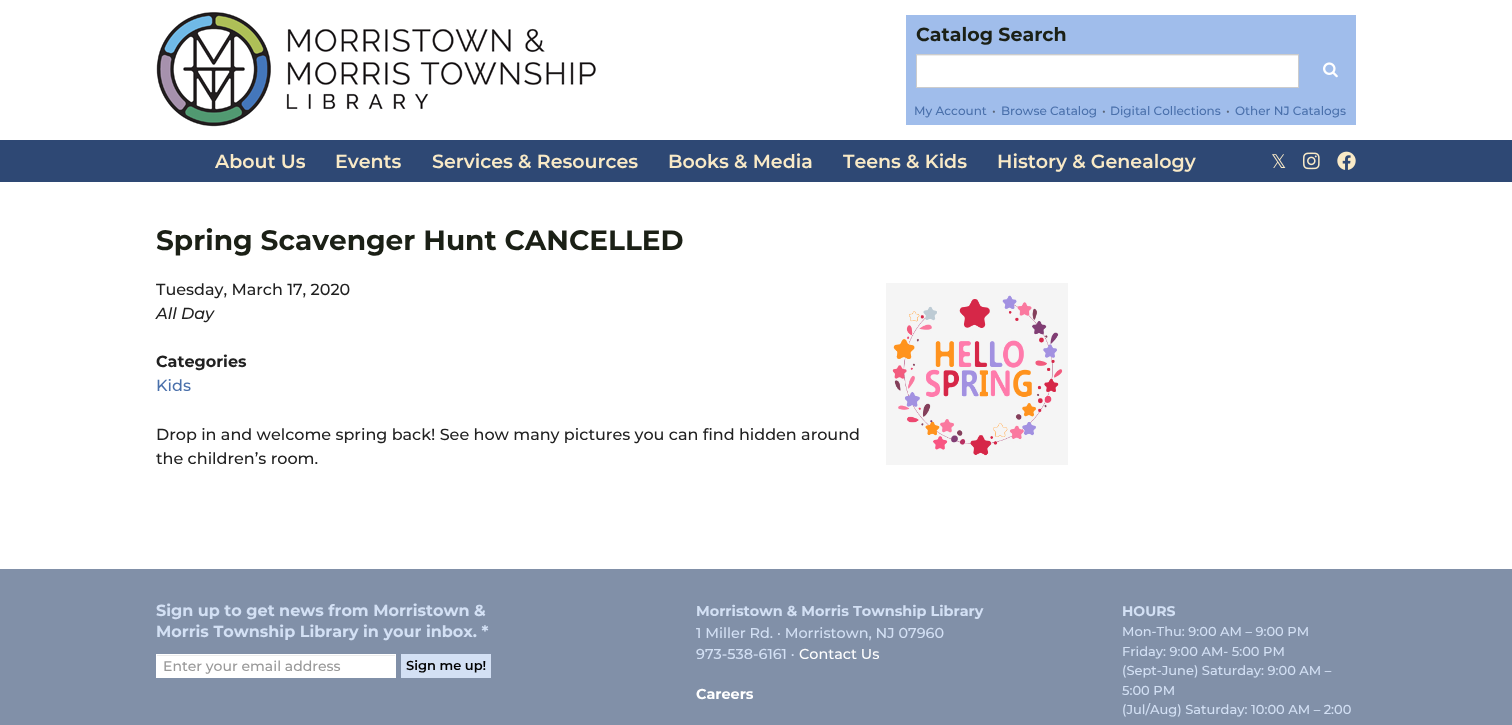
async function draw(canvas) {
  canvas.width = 1512
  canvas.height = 725
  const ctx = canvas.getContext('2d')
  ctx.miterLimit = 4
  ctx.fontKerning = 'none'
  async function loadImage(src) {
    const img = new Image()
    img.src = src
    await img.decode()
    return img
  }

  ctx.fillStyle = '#fff'
  ctx.fillRect(0, 0, 1512, 725)
  ctx.drawImage(await loadImage('image0.png'), 156, 12, 440, 115)
  ctx.fillStyle = '#a0bdeb'
  ctx.fillRect(906, 15, 450, 110)
  ctx.font = 'bold 19px Montserrat'
  ctx.fillStyle = '#1b2016'
  ctx.fillText('Catalog Search', 916, 41)
  ctx.fillStyle = '#fff'
  ctx.fillRect(917, 56, 381, 31)
  ctx.fillStyle = '#ececec'
  ctx.fillRect(917, 55, 381, 1)
  ctx.strokeStyle = '#ccc'
  ctx.strokeRect(916.5, 54.5, 382, 33)
  ctx.drawImage(await loadImage('image1.png'), 1323, 62, 15, 16)
  ctx.font = '500 12px Montserrat'
  ctx.fillStyle = '#4a70ab'
  ctx.fillText('My Account', 914, 115)
  ctx.fillStyle = '#5a6578'
  ctx.fillText('•', 992, 115)
  ctx.fillStyle = '#4a70ab'
  ctx.fillText('Browse Catalog', 1001, 115)
  ctx.fillStyle = '#5a6578'
  ctx.fillText('•', 1102, 115)
  ctx.fillStyle = '#4a70ab'
  ctx.fillText('Digital Collections', 1110, 115)
  ctx.fillStyle = '#5a6578'
  ctx.fillText('•', 1226, 115)
  ctx.fillStyle = '#4a70ab'
  ctx.fillText('Other NJ Catalogs', 1235, 115)
  ctx.fillStyle = '#2e4874'
  ctx.fillRect(0, 140, 1512, 42)
  ctx.font = '600 19px Montserrat'
  ctx.fillStyle = '#f9eac7'
  ctx.fillText('About Us', 215, 168)
  ctx.fillText('Events', 335, 168)
  ctx.fillText('Services & Resources', 432, 168)
  ctx.fillText('Books & Media', 668, 168)
  ctx.fillText('Teens & Kids', 843, 168)
  ctx.fillText('History & Genealogy', 997, 168)
  ctx.font = '19px DejaVu Sans'
  ctx.fillText('𝕏', 1271, 168)
  ctx.drawImage(await loadImage('image2.png'), 1303, 152, 17, 18)
  ctx.drawImage(await loadImage('image3.png'), 1337, 151, 19, 19)
  ctx.font = 'bold 28px Montserrat'
  ctx.fillStyle = '#1b2016'
  ctx.fillText('Spring Scavenger Hunt CANCELLED', 156, 250)
  ctx.font = '500 16px Montserrat'
  ctx.fillStyle = '#212121'
  ctx.fillText('Tuesday, March 17, 2020', 156, 295)
  ctx.font = 'italic 500 16px Montserrat'
  ctx.fillText('All Day', 156, 319)
  ctx.font = 'bold 16px Montserrat'
  ctx.fillText('Categories', 156, 367)
  ctx.font = '500 16px Montserrat'
  ctx.fillStyle = '#4a70ab'
  ctx.fillText('Kids', 156, 391)
  ctx.fillStyle = '#212121'
  ctx.fillText('Drop in and welcome spring back! See how many pictures you can find hidden around', 156, 440)
  ctx.fillText('the children’s room.', 156, 464)
  ctx.drawImage(await loadImage('image4.png'), 886, 283, 182, 182)
  ctx.fillStyle = '#8190a8'
  ctx.fillRect(0, 569, 1512, 156)
  ctx.font = 'bold 16px Montserrat'
  ctx.fillStyle = '#d3e0f4'
  ctx.fillText('Sign up to get news from Morristown &', 156, 616)
  ctx.fillText('Morris Township Library in your inbox. *', 156, 637)
  ctx.fillStyle = '#fff'
  ctx.fillRect(156, 654, 240, 24)
  ctx.fillStyle = '#ececec'
  ctx.fillRect(157, 655, 238, 1)
  ctx.font = '500 14px Montserrat'
  ctx.fillStyle = '#999'
  ctx.fillText('Enter your email address', 163, 671)
  ctx.fillStyle = '#d3e0f4'
  ctx.fillRect(401, 654, 90, 24)
  ctx.font = '600 13px Montserrat'
  ctx.fillStyle = '#000'
  ctx.fillText('Sign me up!', 406, 670)
  ctx.font = 'bold 14.4px Montserrat'
  ctx.fillStyle = '#d3e0f4'
  ctx.fillText('Morristown & Morris Township Library', 696, 616)
  ctx.font = '500 14.4px Montserrat'
  ctx.fillText('1 Miller Rd. · Morristown, NJ 07960', 696, 638)
  ctx.fillText('973-538-6161 ·', 696, 659)
  ctx.fillStyle = '#fff'
  ctx.fillText('Contact Us', 799, 659)
  ctx.font = 'bold 14.4px Montserrat'
  ctx.fillText('Careers', 696, 699)
  ctx.font = 'bold 14px Montserrat'
  ctx.fillStyle = '#d3e0f4'
  ctx.fillText('HOURS', 1122, 616)
  ctx.font = '500 13px Montserrat'
  ctx.fillText('Mon-Thu: 9:00 AM – 9:00 PM', 1122, 636)
  ctx.fillText('Friday: 9:00 AM- 5:00 PM', 1122, 656)
  ctx.fillText('(Sept-June) Saturday: 9:00 AM –', 1122, 675)
  ctx.fillText('5:00 PM', 1122, 695)
  ctx.fillText('(Jul/Aug) Saturday: 10:00 AM – 2:00', 1122, 714)
}

draw(document.querySelector('canvas'))
